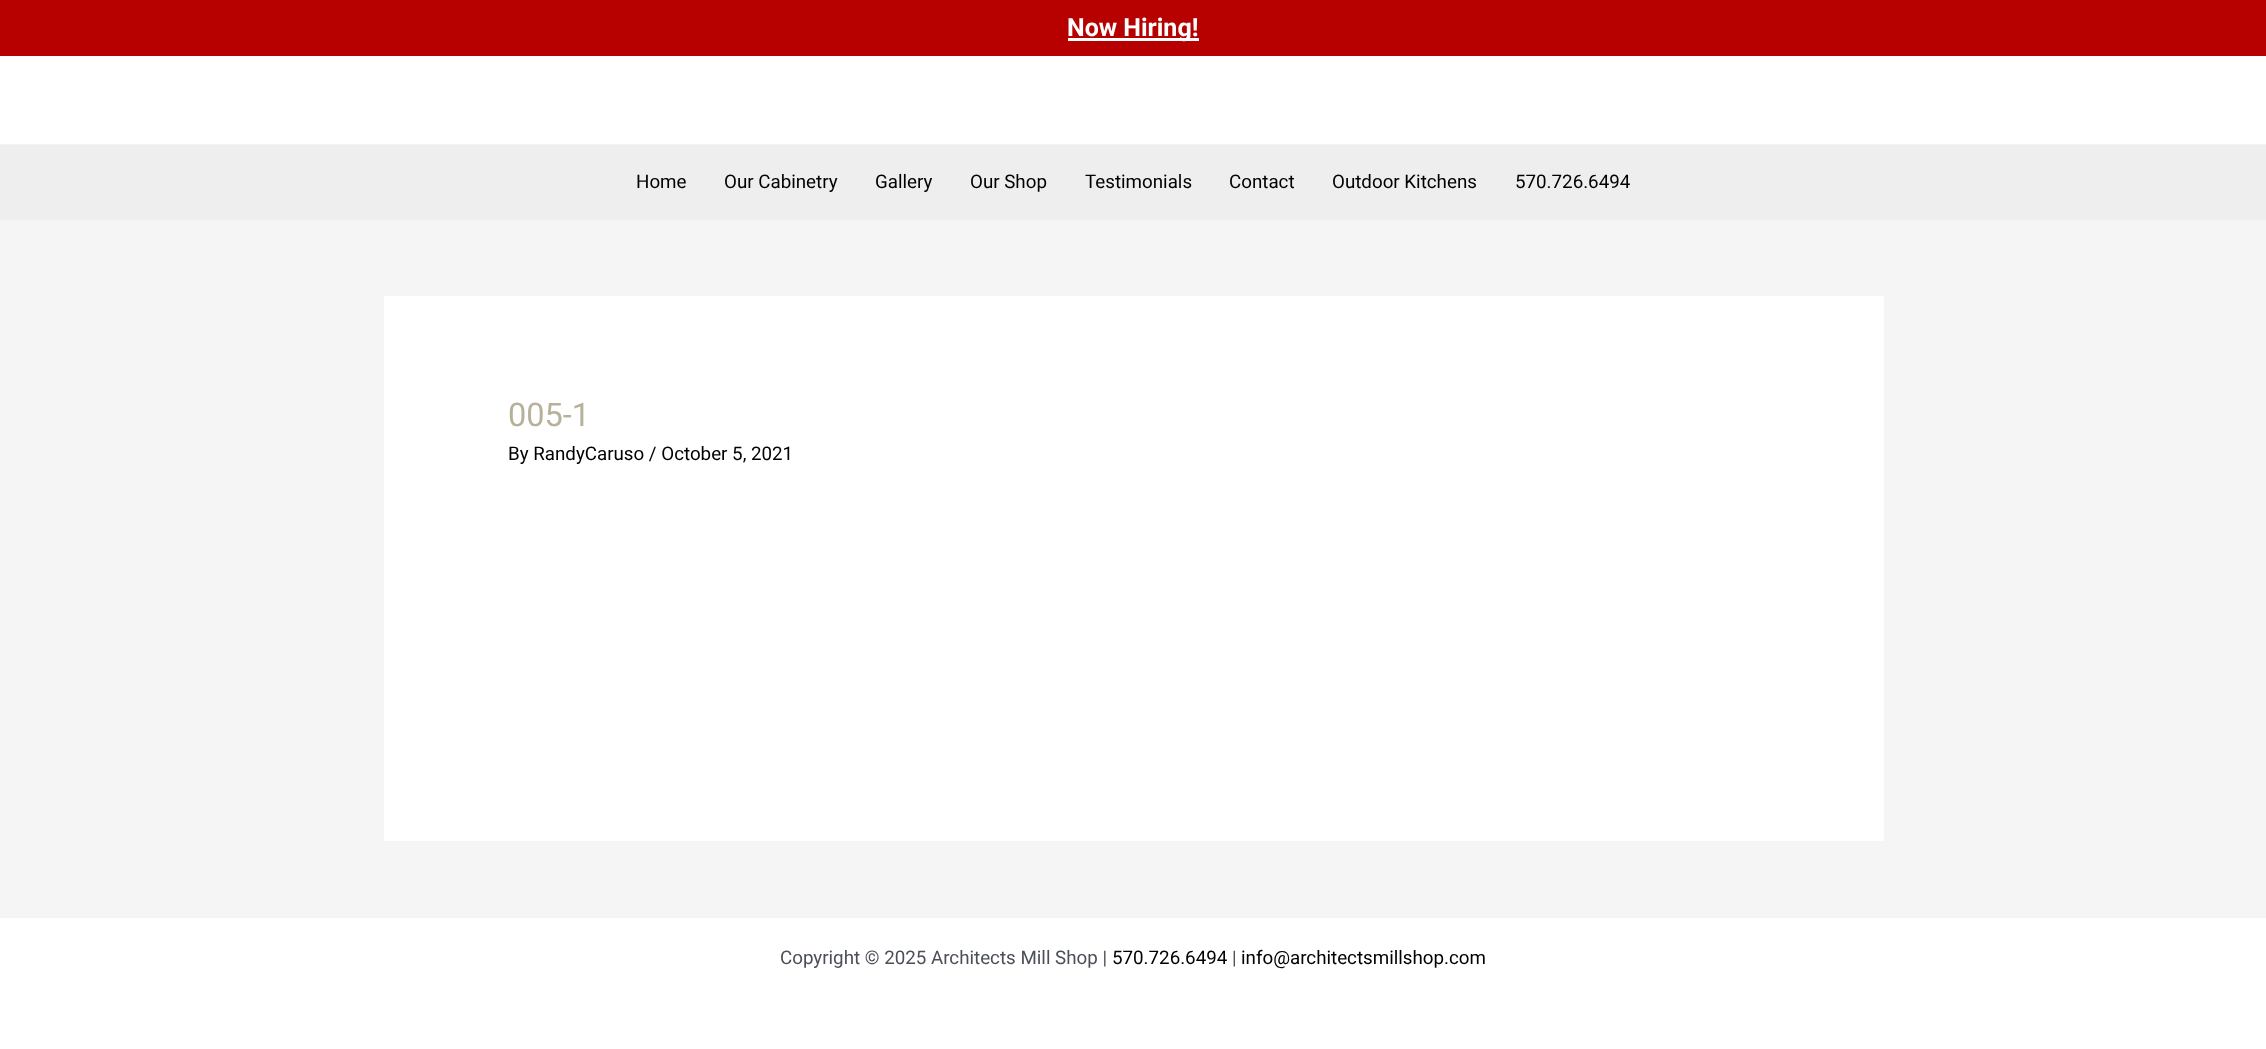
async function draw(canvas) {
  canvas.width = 2266
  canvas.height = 1049
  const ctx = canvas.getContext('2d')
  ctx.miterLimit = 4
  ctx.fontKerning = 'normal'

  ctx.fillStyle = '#f5f5f5'
  ctx.fillRect(0, 0, 2266, 1049)
  ctx.fillStyle = '#b70000'
  ctx.fillRect(0, 0, 2266, 56)
  ctx.fillStyle = '#fff'
  ctx.fillRect(1068, 38, 131, 3)
  ctx.font = 'bold 25px Roboto'
  ctx.fillText('Now Hiring!', 1067, 36)
  ctx.fillRect(0, 56, 2266, 88)
  ctx.fillStyle = '#f2f5f7'
  ctx.fillRect(0, 144, 2266, 1)
  ctx.fillStyle = '#eee'
  ctx.fillRect(0, 145, 2266, 75)
  ctx.fillStyle = '#f2f5f7'
  ctx.fillRect(0, 220, 2266, 1)
  ctx.font = '18.75px Roboto'
  ctx.fillStyle = '#000'
  ctx.fillText('Home', 636, 188)
  ctx.fillText('Our Cabinetry', 724, 188)
  ctx.fillText('Gallery', 875, 188)
  ctx.fillText('Our Shop', 970, 188)
  ctx.fillText('Testimonials', 1085, 188)
  ctx.fillText('Contact', 1229, 188)
  ctx.fillText('Outdoor Kitchens', 1332, 188)
  ctx.fillText('570.726.6494', 1515, 188)
  ctx.fillStyle = '#fff'
  ctx.fillRect(384, 296, 1500, 545)
  ctx.font = '32.5px Roboto'
  ctx.fillStyle = '#b7b19a'
  ctx.fillText('005-1', 508, 426)
  ctx.font = '18.75px Roboto'
  ctx.fillStyle = '#000'
  ctx.fillText('By RandyCaruso / October 5, 2021', 508, 460)
  ctx.fillStyle = '#fff'
  ctx.fillRect(0, 918, 2266, 131)
  ctx.fillStyle = '#f2f5f7'
  ctx.fillRect(0, 916, 2266, 1)
  ctx.fillStyle = '#4b4f58'
  ctx.fillText('Copyright © 2025 Architects Mill Shop |', 780, 964)
  ctx.fillStyle = '#000'
  ctx.fillText('570.726.6494', 1112, 964)
  ctx.fillStyle = '#4b4f58'
  ctx.fillText('|', 1232, 964)
  ctx.fillStyle = '#000'
  ctx.fillText('info@architectsmillshop.com', 1241, 964)
}

draw(document.querySelector('canvas'))
